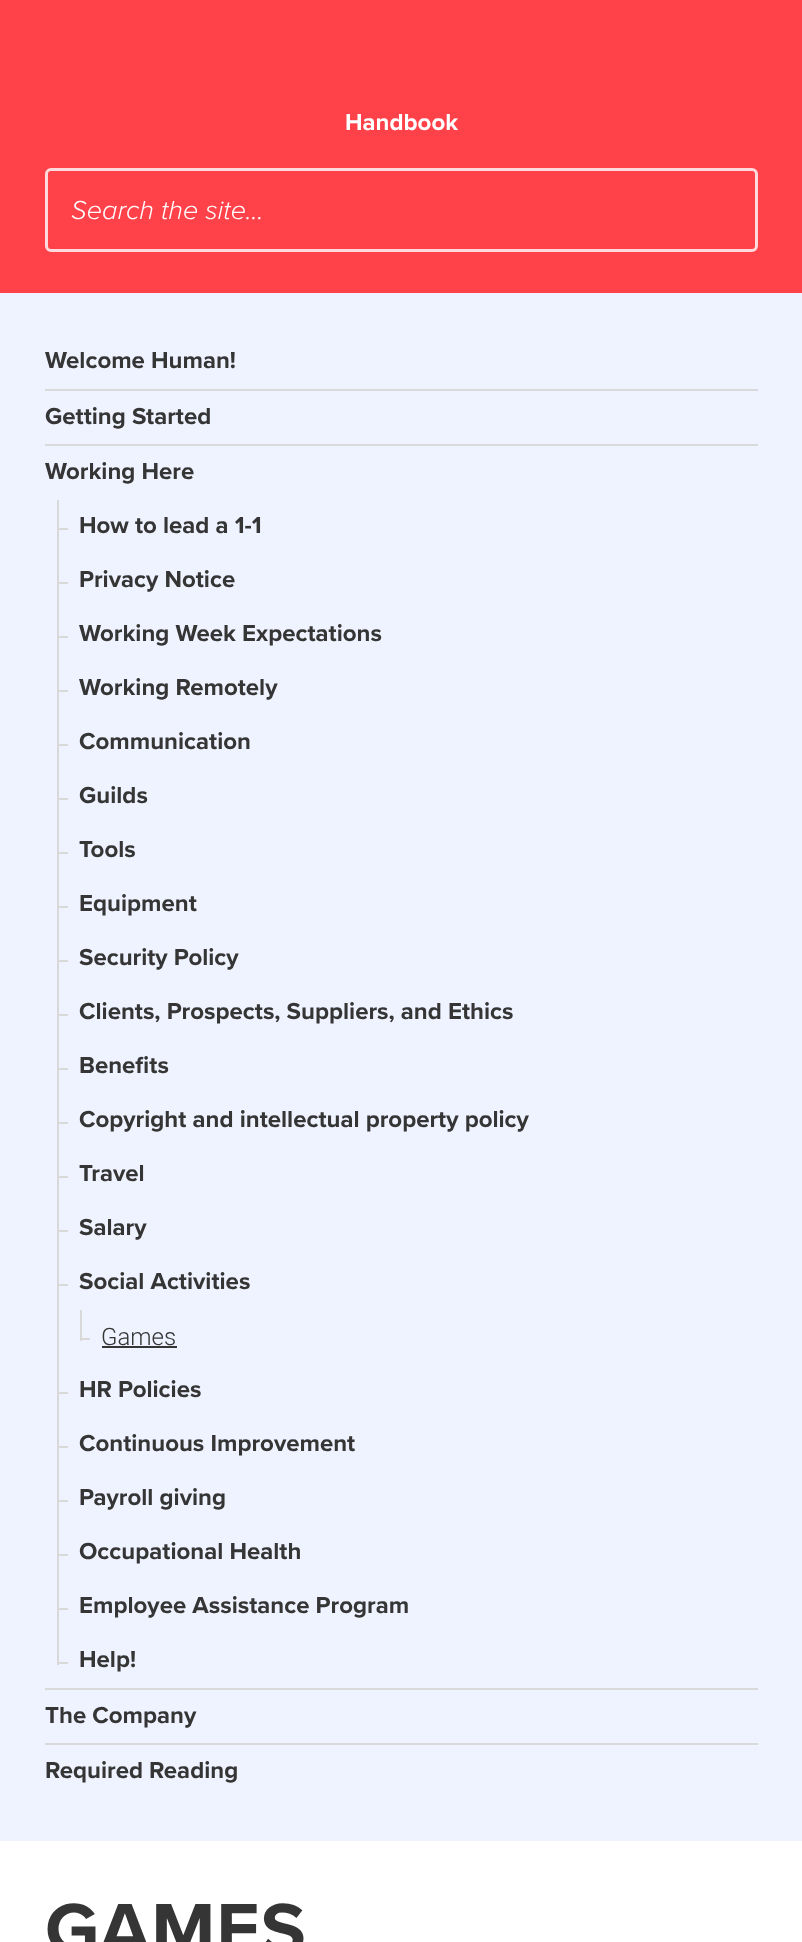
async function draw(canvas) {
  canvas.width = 802
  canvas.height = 1942
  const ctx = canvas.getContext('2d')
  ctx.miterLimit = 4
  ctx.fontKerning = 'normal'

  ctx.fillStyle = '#fff'
  ctx.fillRect(0, 0, 802, 1942)
  ctx.fillStyle = '#ff424a'
  ctx.fillRect(0, 0, 802, 293)
  ctx.font = 'bold 24px Proxima Nova'
  ctx.fillStyle = '#fff'
  ctx.fillText('Handbook', 345, 130)
  ctx.beginPath()
  ctx.roundRect(46.5, 169.5, 710, 81, 4.5)
  ctx.strokeStyle = '#ffd9db'
  ctx.lineWidth = 3
  ctx.stroke()
  ctx.font = 'italic 300 27px Proxima Nova'
  ctx.fillText('Search the site…', 71, 219)
  ctx.fillStyle = '#eff2ff'
  ctx.fillRect(0, 293, 802, 1548)
  ctx.fillStyle = '#d9d9d9'
  ctx.fillRect(45, 389, 713, 2)
  ctx.font = 'bold 24px Proxima Nova'
  ctx.fillStyle = '#353535'
  ctx.fillText('Welcome Human!', 45, 368)
  ctx.fillStyle = '#d9d9d9'
  ctx.fillRect(45, 444, 713, 2)
  ctx.fillStyle = '#353535'
  ctx.fillText('Getting Started', 45, 424)
  ctx.fillStyle = '#d9d9d9'
  ctx.fillRect(45, 1688, 713, 2)
  ctx.fillStyle = '#353535'
  ctx.fillText('Working Here', 45, 479)
  ctx.fillStyle = '#d9d9d9'
  ctx.fillRect(57, 528, 11, 2)
  ctx.fillRect(57, 582, 11, 2)
  ctx.fillRect(57, 636, 11, 2)
  ctx.fillRect(57, 690, 11, 2)
  ctx.fillRect(57, 744, 11, 2)
  ctx.fillRect(57, 798, 11, 2)
  ctx.fillRect(57, 852, 11, 2)
  ctx.fillRect(57, 906, 11, 2)
  ctx.fillRect(57, 960, 11, 2)
  ctx.fillRect(57, 1014, 11, 2)
  ctx.fillRect(57, 1068, 11, 2)
  ctx.fillRect(57, 1122, 11, 2)
  ctx.fillRect(57, 1176, 11, 2)
  ctx.fillRect(57, 1230, 11, 2)
  ctx.fillRect(57, 1284, 11, 2)
  ctx.fillRect(57, 1392, 11, 2)
  ctx.fillRect(57, 1446, 11, 2)
  ctx.fillRect(57, 1500, 11, 2)
  ctx.fillRect(57, 1554, 11, 2)
  ctx.fillRect(57, 1608, 11, 2)
  ctx.fillRect(57, 1662, 11, 2)
  ctx.fillRect(57, 500, 2, 1165)
  ctx.fillStyle = '#353535'
  ctx.fillText('How to lead a 1-1', 79, 533)
  ctx.fillText('Privacy Notice', 79, 587)
  ctx.fillText('Working Week Expectations', 79, 641)
  ctx.fillText('Working Remotely', 79, 695)
  ctx.fillText('Communication', 79, 749)
  ctx.fillText('Guilds', 79, 803)
  ctx.fillText('Tools', 79, 857)
  ctx.fillText('Equipment', 79, 911)
  ctx.fillText('Security Policy', 79, 965)
  ctx.fillText('Clients, Prospects, Suppliers, and Ethics', 79, 1019)
  ctx.fillText('Benefits', 79, 1073)
  ctx.fillText('Copyright and intellectual property policy', 79, 1127)
  ctx.fillText('Travel', 79, 1181)
  ctx.fillText('Salary', 79, 1235)
  ctx.fillText('Social Activities', 79, 1289)
  ctx.fillStyle = '#d9d9d9'
  ctx.fillRect(80, 1338, 10, 2)
  ctx.fillRect(80, 1310, 2, 31)
  ctx.font = '300 24px Roboto'
  ctx.fillStyle = '#353535'
  ctx.fillText('Games', 101, 1345)
  ctx.fillRect(102, 1346, 75, 2)
  ctx.font = 'bold 24px Proxima Nova'
  ctx.fillText('HR Policies', 79, 1397)
  ctx.fillText('Continuous Improvement', 79, 1451)
  ctx.fillText('Payroll giving', 79, 1505)
  ctx.fillText('Occupational Health', 79, 1559)
  ctx.fillText('Employee Assistance Program', 79, 1613)
  ctx.fillText('Help!', 79, 1667)
  ctx.fillStyle = '#d9d9d9'
  ctx.fillRect(45, 1743, 713, 2)
  ctx.fillStyle = '#353535'
  ctx.fillText('The Company', 45, 1723)
  ctx.fillText('Required Reading', 45, 1778)
  ctx.letterSpacing = '0.75px'
  ctx.font = 'bold 75px Proxima Nova'
  ctx.fillText('GAMES', 45, 1954)
}

draw(document.querySelector('canvas'))
